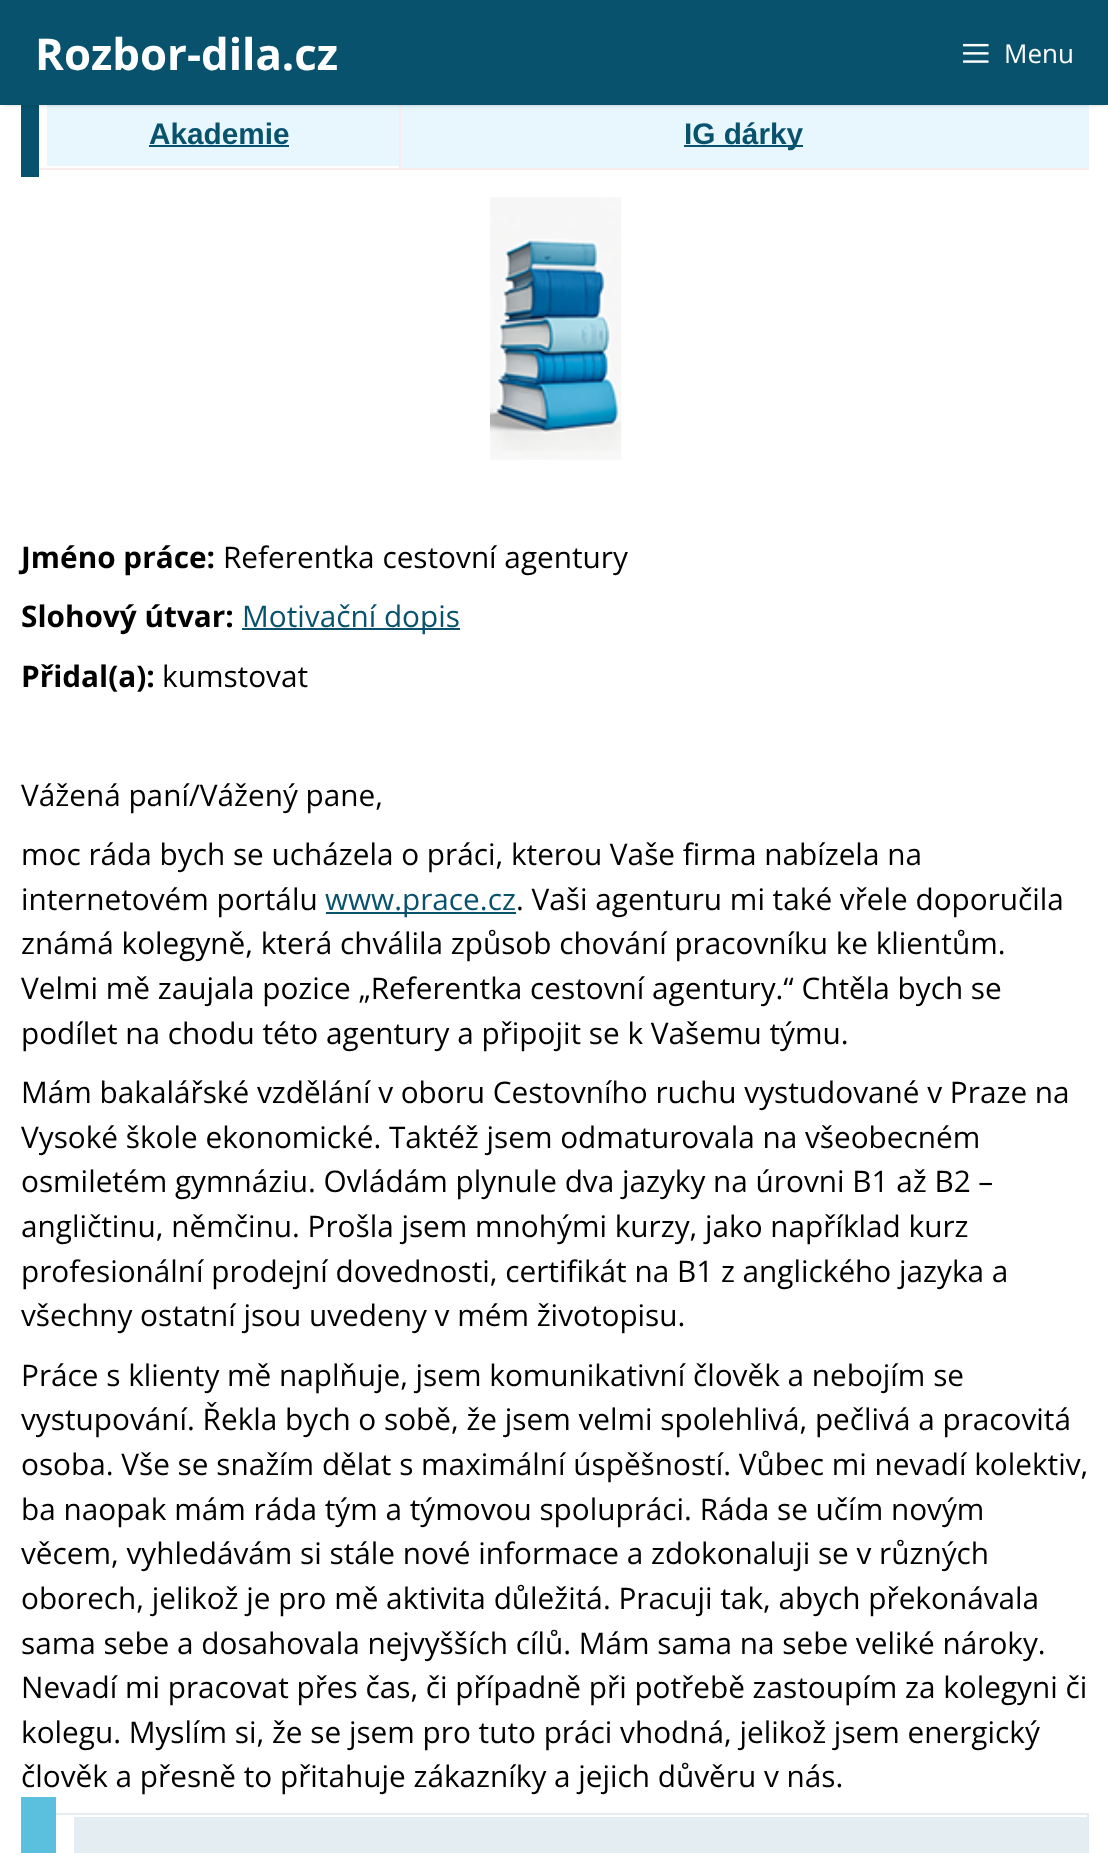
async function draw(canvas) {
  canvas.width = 1108
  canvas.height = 1853
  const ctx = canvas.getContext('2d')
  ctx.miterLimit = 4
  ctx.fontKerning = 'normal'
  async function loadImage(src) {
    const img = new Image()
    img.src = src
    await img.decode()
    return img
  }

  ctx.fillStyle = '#fff'
  ctx.fillRect(0, 0, 1108, 1853)
  ctx.fillStyle = '#f9ecec'
  ctx.fillRect(399, 168, 690, 2)
  ctx.fillRect(399, 105, 2, 65)
  ctx.fillStyle = '#08526d'
  ctx.fillRect(21, 105, 18, 72)
  ctx.fillStyle = '#e7f7fd'
  ctx.fillRect(47, 105, 352, 61)
  ctx.fillRect(401, 105, 688, 63)
  ctx.fillStyle = '#00000033'
  ctx.filter = 'blur(2px)'
  ctx.beginPath()
  ctx.rect(4, 7, 1102, 98)
  ctx.fill()
  ctx.filter = 'none'
  ctx.fillStyle = '#08526d'
  ctx.fillRect(0, 0, 1108, 105)
  ctx.font = 'bold 43.75px Open Sans'
  ctx.fillStyle = '#fff'
  ctx.fillText('Rozbor-dila.cz', 35, 70)
  ctx.drawImage(await loadImage('image0.png'), 963, 43, 26, 20)
  ctx.font = '26px Open Sans'
  ctx.fillText('Menu', 1004, 63)
  ctx.fillStyle = '#f9ecec'
  ctx.fillRect(39, 168, 362, 2)
  ctx.font = 'bold 29.75px Liberation Sans'
  ctx.fillStyle = '#08526d'
  ctx.fillText('Akademie', 149, 144)
  ctx.fillRect(149, 145, 140, 2)
  ctx.fillRect(684, 145, 119, 2)
  ctx.fillText('IG dárky', 684, 144)
  ctx.drawImage(await loadImage('image1.png'), 490, 197, 132, 263)
  ctx.font = 'bold 29.75px Open Sans'
  ctx.fillStyle = '#000'
  ctx.fillText('Jméno práce:', 21, 568)
  ctx.font = '29.75px Open Sans'
  ctx.fillText('Referentka cestovní agentury', 223, 568)
  ctx.font = 'bold 29.75px Open Sans'
  ctx.fillText('Slohový útvar:', 21, 627)
  ctx.fillStyle = '#08526d'
  ctx.fillRect(242, 628, 218, 2)
  ctx.font = '29.75px Open Sans'
  ctx.fillText('Motivační dopis', 242, 627)
  ctx.font = 'bold 29.75px Open Sans'
  ctx.fillStyle = '#000'
  ctx.fillText('Přidal(a):', 21, 687)
  ctx.font = '29.75px Open Sans'
  ctx.fillText('kumstovat', 162, 687)
  ctx.fillText('Vážená paní/Vážený pane,', 21, 806)
  ctx.fillText('moc ráda bych se ucházela o práci, kterou Vaše firma nabízela na', 21, 865)
  ctx.fillText('internetovém portálu', 21, 910)
  ctx.fillStyle = '#08526d'
  ctx.fillRect(326, 912, 190, 2)
  ctx.fillText('www.prace.cz', 325, 910)
  ctx.fillStyle = '#000'
  ctx.fillText('. Vaši agenturu mi také vřele doporučila', 516, 910)
  ctx.fillText('známá kolegyně, která chválila způsob chování pracovníku ke klientům.', 21, 954)
  ctx.fillText('Velmi mě zaujala pozice „Referentka cestovní agentury.“ Chtěla bych se', 21, 999)
  ctx.fillText('podílet na chodu této agentury a připojit se k Vašemu týmu.', 21, 1044)
  ctx.fillText('Mám bakalářské vzdělání v oboru Cestovního ruchu vystudované v Praze na', 21, 1103)
  ctx.fillText('Vysoké škole ekonomické. Taktéž jsem odmaturovala na všeobecném', 21, 1148)
  ctx.fillText('osmiletém gymnáziu. Ovládám plynule dva jazyky na úrovni B1 až B2 –', 21, 1192)
  ctx.fillText('angličtinu, němčinu. Prošla jsem mnohými kurzy, jako například kurz', 21, 1237)
  ctx.fillText('profesionální prodejní dovednosti, certifikát na B1 z anglického jazyka a', 21, 1282)
  ctx.fillText('všechny ostatní jsou uvedeny v mém životopisu.', 21, 1326)
  ctx.fillText('Práce s klienty mě naplňuje, jsem komunikativní člověk a nebojím se', 21, 1386)
  ctx.fillText('vystupování. Řekla bych o sobě, že jsem velmi spolehlivá, pečlivá a pracovitá', 21, 1430)
  ctx.fillText('osoba. Vše se snažím dělat s maximální úspěšností. Vůbec mi nevadí kolektiv,', 21, 1475)
  ctx.fillText('ba naopak mám ráda tým a týmovou spolupráci. Ráda se učím novým', 21, 1520)
  ctx.fillText('věcem, vyhledávám si stále nové informace a zdokonaluji se v různých', 21, 1564)
  ctx.fillText('oborech, jelikož je pro mě aktivita důležitá. Pracuji tak, abych překonávala', 21, 1609)
  ctx.fillText('sama sebe a dosahovala nejvyšších cílů. Mám sama na sebe veliké nároky.', 21, 1654)
  ctx.fillText('Nevadí mi pracovat přes čas, či případně při potřebě zastoupím za kolegyni či', 21, 1698)
  ctx.fillText('kolegu. Myslím si, že se jsem pro tuto práci vhodná, jelikož jsem energický', 21, 1743)
  ctx.fillText('člověk a přesně to přitahuje zákazníky a jejich důvěru v nás.', 21, 1787)
  ctx.fillStyle = '#e3edf2'
  ctx.fillRect(56, 1813, 1033, 2)
  ctx.fillRect(1087, 1813, 2, 40)
  ctx.fillStyle = '#5bc0de'
  ctx.fillRect(21, 1797, 35, 56)
  ctx.fillStyle = '#e3edf2'
  ctx.fillRect(74, 1817, 1013, 36)
}

draw(document.querySelector('canvas'))
